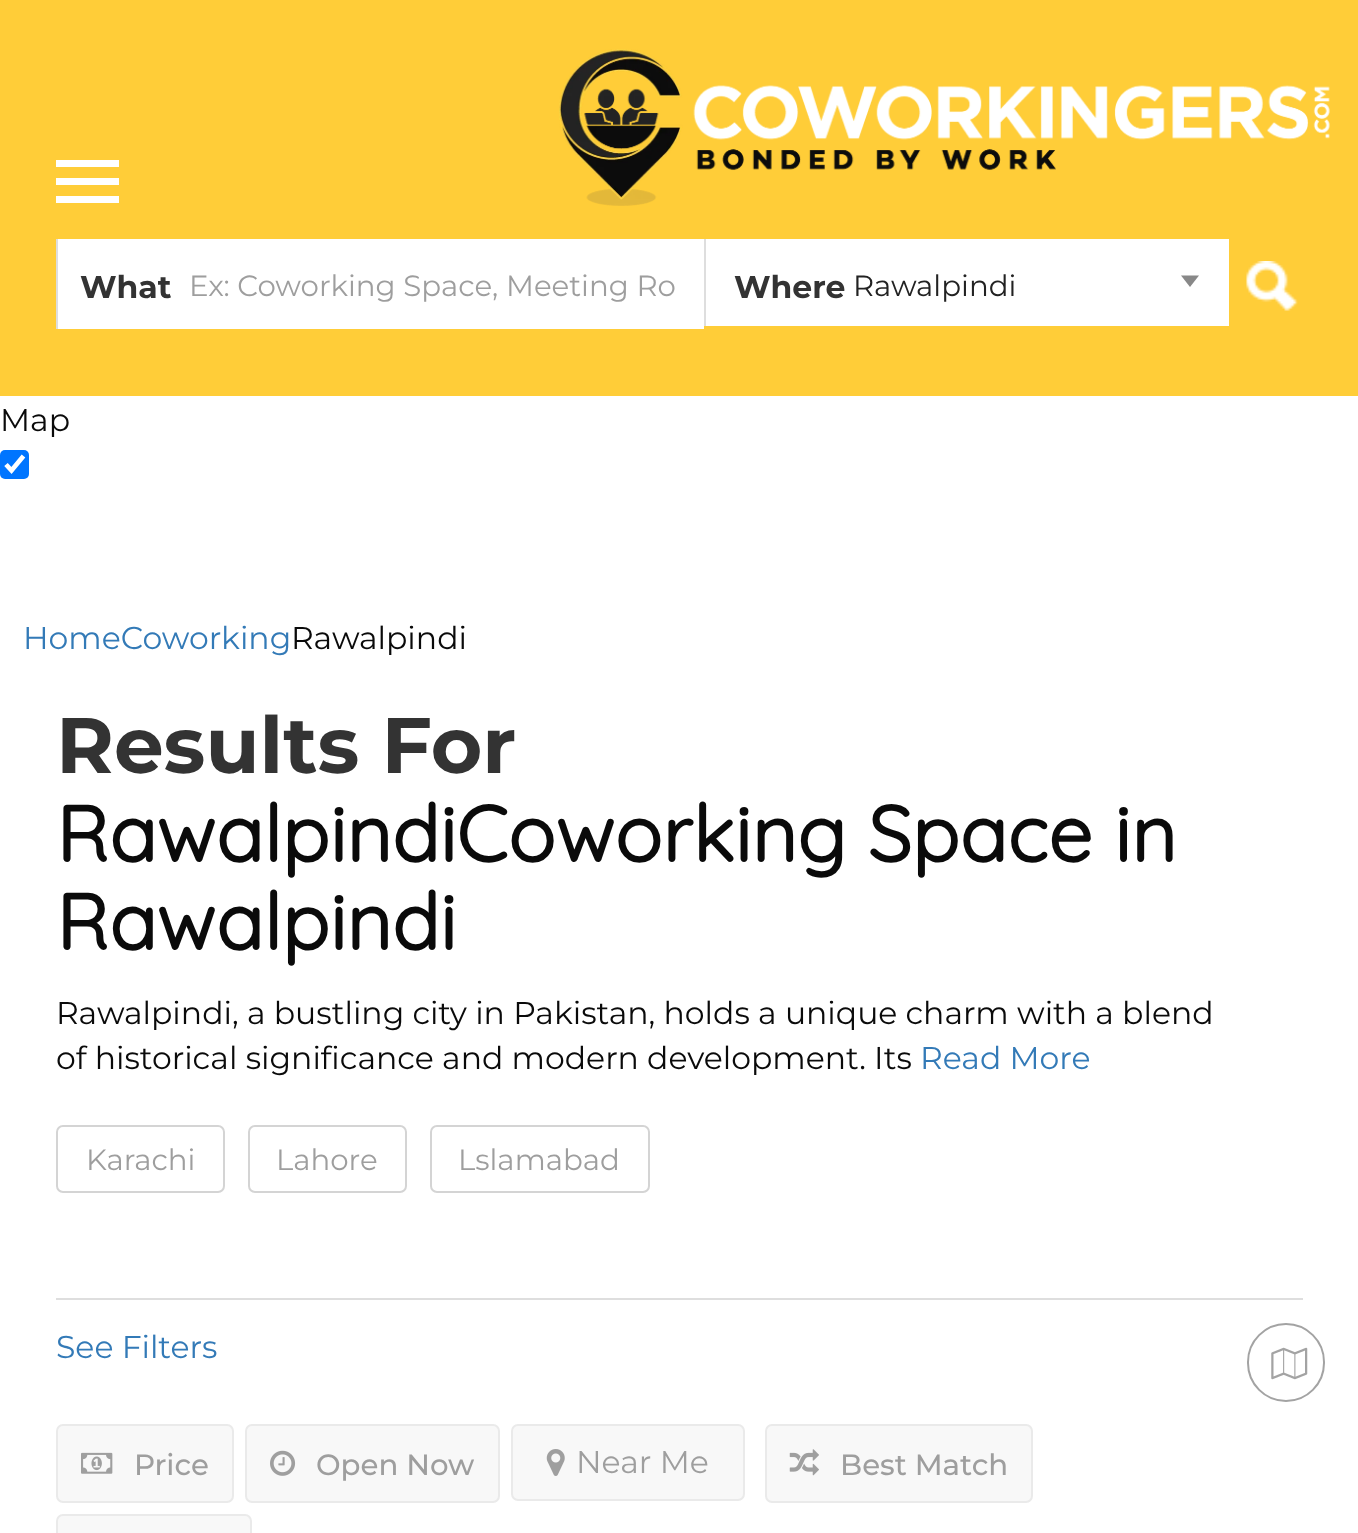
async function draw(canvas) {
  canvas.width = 1358
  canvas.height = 1533
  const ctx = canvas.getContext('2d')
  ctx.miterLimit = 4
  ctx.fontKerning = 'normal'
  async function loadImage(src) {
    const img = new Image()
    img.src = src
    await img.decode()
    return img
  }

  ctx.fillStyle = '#fff'
  ctx.fillRect(0, 0, 1358, 1533)
  ctx.fillStyle = '#ffcd38'
  ctx.fillRect(0, 0, 1358, 396)
  ctx.drawImage(await loadImage('image0.png'), 559, 49, 771, 157)
  ctx.fillStyle = '#fff'
  ctx.fillRect(56, 160, 63, 7)
  ctx.fillRect(56, 178, 63, 7)
  ctx.fillRect(56, 196, 63, 7)
  ctx.fillRect(58, 239, 646, 90)
  ctx.fillStyle = '#dedede'
  ctx.fillRect(56, 239, 2, 90)
  ctx.font = 'bold 31.5px Montserrat'
  ctx.fillStyle = '#333'
  ctx.fillText('What', 80, 298)
  ctx.font = '29.25px Montserrat'
  ctx.fillStyle = '#9e9e9e'
  ctx.fillText('Ex: Coworking Space, Meeting Ro', 189, 296)
  ctx.fillStyle = '#fff'
  ctx.fillRect(706, 239, 523, 87)
  ctx.fillStyle = '#dedede'
  ctx.fillRect(704, 239, 2, 87)
  ctx.font = 'bold 31.5px Montserrat'
  ctx.fillStyle = '#333'
  ctx.fillText('Where', 734, 298)
  ctx.font = '29.25px Montserrat'
  ctx.fillStyle = '#222'
  ctx.fillText('Rawalpindi', 853, 296)
  ctx.fillStyle = '#888'
  ctx.beginPath()
  ctx.moveTo(1181, 275.5)
  ctx.lineTo(1199, 275.5)
  ctx.lineTo(1190, 287)
  ctx.closePath()
  ctx.fill()
  ctx.drawImage(await loadImage('image1.png'), 1246, 261, 52, 50)
  ctx.font = '31.5px Montserrat'
  ctx.fillStyle = '#0a0a0a'
  ctx.fillText('Map', 0, 431)
  ctx.fillStyle = '#0075ff'
  ctx.beginPath()
  ctx.roundRect(0, 450, 29, 29, 5)
  ctx.fill()
  ctx.beginPath()
  ctx.moveTo(6, 464.5)
  ctx.lineTo(11.5, 470.5)
  ctx.lineTo(23.5, 456)
  ctx.strokeStyle = '#fff'
  ctx.lineWidth = 4.7
  ctx.stroke()
  ctx.fillStyle = '#337ab7'
  ctx.fillText('HomeCoworking', 23, 649)
  ctx.fillStyle = '#0a0a0a'
  ctx.fillText('Rawalpindi', 291, 649)
  ctx.font = 'bold 78.75px Montserrat'
  ctx.fillStyle = '#333'
  ctx.fillText('Results For', 56, 773)
  ctx.font = 'bold 78.75px Quicksand'
  ctx.fillStyle = '#0a0a0a'
  ctx.fillText('RawalpindiCoworking Space in', 56, 862)
  ctx.fillText('Rawalpindi', 56, 950)
  ctx.font = '31.5px Montserrat'
  ctx.fillText('Rawalpindi, a bustling city in Pakistan, holds a unique charm with a blend', 56, 1024)
  ctx.fillText('of historical significance and modern development. Its', 56, 1069)
  ctx.fillStyle = '#337ab7'
  ctx.fillText('Read More', 920, 1069)
  ctx.beginPath()
  ctx.roundRect(57, 1126, 167, 66, 6)
  ctx.strokeStyle = '#d4d4d4'
  ctx.lineWidth = 2
  ctx.stroke()
  ctx.font = '29.25px Montserrat'
  ctx.fillStyle = '#9e9e9e'
  ctx.fillText('Karachi', 86, 1170)
  ctx.beginPath()
  ctx.roundRect(249, 1126, 157, 66, 6)
  ctx.stroke()
  ctx.fillText('Lahore', 276, 1170)
  ctx.beginPath()
  ctx.roundRect(431, 1126, 218, 66, 6)
  ctx.stroke()
  ctx.fillText('Lslamabad', 458, 1170)
  ctx.fillStyle = '#dedede'
  ctx.fillRect(56, 1298, 1247, 2)
  ctx.font = '31.5px Montserrat'
  ctx.fillStyle = '#337ab7'
  ctx.fillText('See Filters', 56, 1358)
  ctx.beginPath()
  ctx.roundRect(1248, 1324, 76, 77, 38)
  ctx.strokeStyle = '#a3a3a3'
  ctx.stroke()
  ctx.drawImage(await loadImage('image2.png'), 1271, 1347, 37, 33)
  ctx.fillStyle = '#f8f8f8'
  ctx.beginPath()
  ctx.roundRect(57, 1425, 176, 77, 6)
  ctx.fill()
  ctx.strokeStyle = '#eaeaea'
  ctx.stroke()
  ctx.drawImage(await loadImage('image3.png'), 81, 1452, 32, 22)
  ctx.font = '500 29.25px Montserrat'
  ctx.fillStyle = '#9e9e9e'
  ctx.fillText('Price', 134, 1475)
  ctx.fillStyle = '#f8f8f8'
  ctx.beginPath()
  ctx.roundRect(246, 1425, 253, 77, 6)
  ctx.fill()
  ctx.stroke()
  ctx.drawImage(await loadImage('image4.png'), 270, 1450, 26, 26)
  ctx.fillStyle = '#9e9e9e'
  ctx.fillText('Open Now', 316, 1475)
  ctx.fillStyle = '#f8f8f8'
  ctx.beginPath()
  ctx.roundRect(512, 1425, 232, 75, 6)
  ctx.fill()
  ctx.stroke()
  ctx.drawImage(await loadImage('image5.png'), 546, 1449, 19, 27)
  ctx.font = '31.5px Montserrat'
  ctx.fillStyle = '#9e9e9e'
  ctx.fillText('Near Me', 576, 1473)
  ctx.fillStyle = '#f8f8f8'
  ctx.beginPath()
  ctx.roundRect(766, 1425, 266, 77, 6)
  ctx.fill()
  ctx.stroke()
  ctx.drawImage(await loadImage('image6.png'), 789, 1449, 30, 27)
  ctx.font = '500 29.25px Montserrat'
  ctx.fillStyle = '#9e9e9e'
  ctx.fillText('Best Match', 840, 1475)
  ctx.fillStyle = '#f8f8f8'
  ctx.beginPath()
  ctx.roundRect(57, 1515, 194, 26, 6)
  ctx.fill()
  ctx.stroke()
}

draw(document.querySelector('canvas'))
